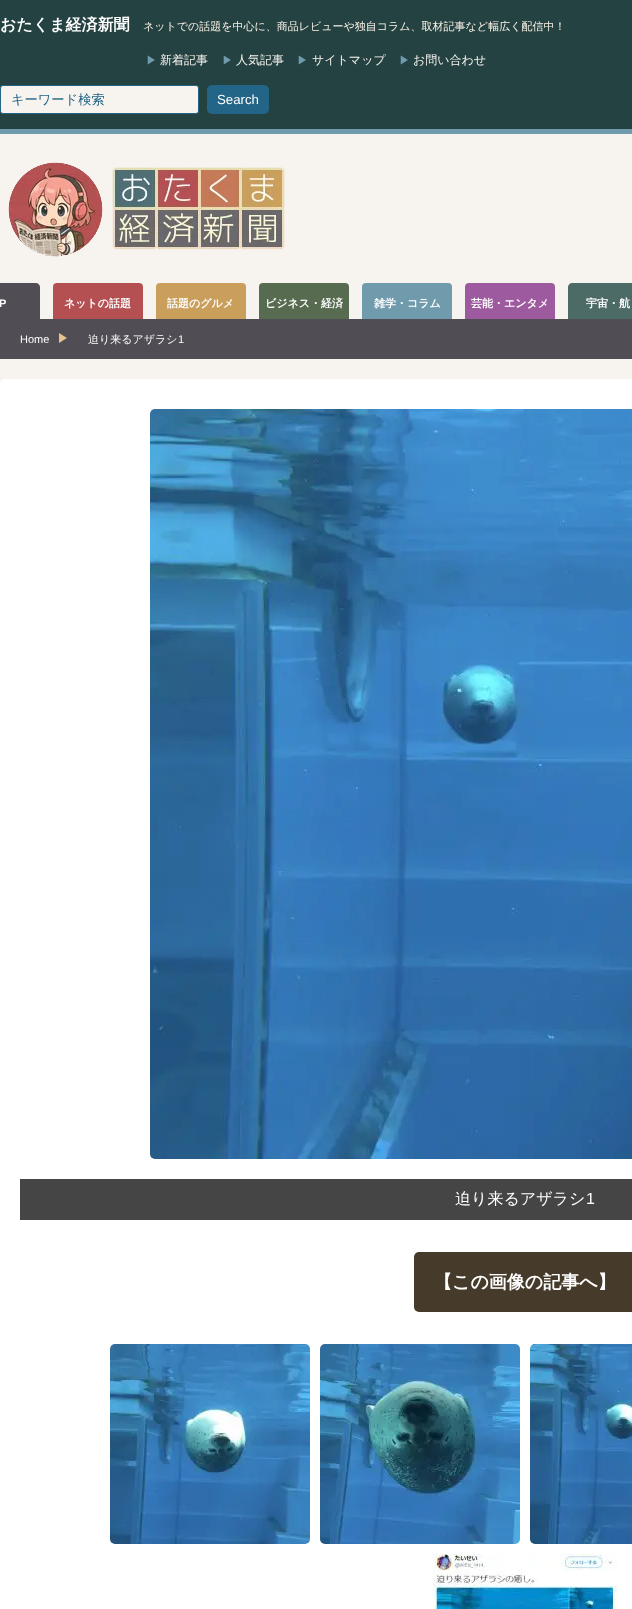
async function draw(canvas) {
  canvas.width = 632
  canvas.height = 1609
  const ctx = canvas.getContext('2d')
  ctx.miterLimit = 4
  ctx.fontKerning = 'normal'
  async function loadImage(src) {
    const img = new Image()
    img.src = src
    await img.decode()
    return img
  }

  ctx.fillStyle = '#f7f4ef'
  ctx.fillRect(0, 0, 632, 1609)
  ctx.fillStyle = '#254242'
  ctx.fillRect(0, 0, 632, 129)
  ctx.fillStyle = '#709bac'
  ctx.fillRect(0, 129, 632, 5)
  ctx.font = 'bold 16px WenQuanYi Zen Hei'
  ctx.fillStyle = '#fff'
  ctx.fillText('おたくま経済新聞', 0, 30)
  ctx.font = '500 11px WenQuanYi Zen Hei'
  ctx.fillStyle = '#fbf3e8'
  ctx.fillText('ネットでの話題を中心に、商品レビューや独自コラム、取材記事など幅広く配信中！', 143, 30)
  ctx.fillStyle = '#709bac'
  ctx.fillText('▶', 146, 64)
  ctx.font = '500 12px WenQuanYi Zen Hei'
  ctx.fillStyle = '#f7f4ef'
  ctx.fillText('新着記事', 160, 64)
  ctx.font = '500 11px WenQuanYi Zen Hei'
  ctx.fillStyle = '#709bac'
  ctx.fillText('▶', 222, 64)
  ctx.font = '500 12px WenQuanYi Zen Hei'
  ctx.fillStyle = '#f7f4ef'
  ctx.fillText('人気記事', 236, 64)
  ctx.font = '500 11px WenQuanYi Zen Hei'
  ctx.fillStyle = '#709bac'
  ctx.fillText('▶', 297, 64)
  ctx.font = '500 12px WenQuanYi Zen Hei'
  ctx.fillStyle = '#f7f4ef'
  ctx.fillText('サイトマップ', 312, 64)
  ctx.font = '500 11px WenQuanYi Zen Hei'
  ctx.fillStyle = '#709bac'
  ctx.fillText('▶', 399, 64)
  ctx.font = '500 12px WenQuanYi Zen Hei'
  ctx.fillStyle = '#f7f4ef'
  ctx.fillText('お問い合わせ', 413, 64)
  ctx.beginPath()
  ctx.roundRect(0.5, 85.5, 198, 28, 2.5)
  ctx.fill()
  ctx.strokeStyle = '#236586'
  ctx.stroke()
  ctx.font = '500 13.25px WenQuanYi Zen Hei'
  ctx.fillStyle = '#236586'
  ctx.fillText('キーワード検索', 11, 104)
  ctx.beginPath()
  ctx.roundRect(207, 85, 62, 29, 5)
  ctx.fill()
  ctx.font = '13.25px Liberation Sans'
  ctx.fillStyle = '#fff'
  ctx.fillText('Search', 217, 104)
  ctx.drawImage(await loadImage('image0.png'), 8, 162, 277, 95)
  ctx.fillStyle = '#504d54'
  ctx.beginPath()
  ctx.moveTo(0, 283)
  ctx.lineTo(36, 283)
  ctx.bezierCurveTo(38, 283, 40, 285, 40, 287)
  ctx.lineTo(40, 319)
  ctx.lineTo(-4, 319)
  ctx.lineTo(-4, 287)
  ctx.bezierCurveTo(-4, 285, -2, 283, 0, 283)
  ctx.closePath()
  ctx.fill()
  ctx.font = 'bold 11px Liberation Sans'
  ctx.fillStyle = '#fff'
  ctx.fillText('P', -1, 307)
  ctx.fillStyle = '#b55052'
  ctx.beginPath()
  ctx.roundRect(53, 283, 90, 36, [4, 4, 0, 0])
  ctx.fill()
  ctx.font = 'bold 11px WenQuanYi Zen Hei'
  ctx.fillStyle = '#fff'
  ctx.fillText('ネットの話題', 64, 307)
  ctx.fillStyle = '#ca9f5c'
  ctx.beginPath()
  ctx.roundRect(156, 283, 90, 36, [4, 4, 0, 0])
  ctx.fill()
  ctx.fillStyle = '#fff'
  ctx.fillText('話題のグルメ', 167, 307)
  ctx.fillStyle = '#566b4f'
  ctx.beginPath()
  ctx.roundRect(259, 283, 90, 36, [4, 4, 0, 0])
  ctx.fill()
  ctx.fillStyle = '#fff'
  ctx.fillText('ビジネス・経済', 265, 307)
  ctx.fillStyle = '#709bac'
  ctx.beginPath()
  ctx.roundRect(362, 283, 90, 36, [4, 4, 0, 0])
  ctx.fill()
  ctx.fillStyle = '#fff'
  ctx.fillText('雑学・コラム', 374, 307)
  ctx.fillStyle = '#9e5a9e'
  ctx.beginPath()
  ctx.roundRect(465, 283, 90, 36, [4, 4, 0, 0])
  ctx.fill()
  ctx.fillStyle = '#fff'
  ctx.fillText('芸能・エンタメ', 471, 307)
  ctx.fillStyle = '#4c6b66'
  ctx.beginPath()
  ctx.moveTo(572, 283)
  ctx.lineTo(632, 283)
  ctx.bezierCurveTo(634, 283, 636, 285, 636, 287)
  ctx.lineTo(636, 319)
  ctx.lineTo(568, 319)
  ctx.lineTo(568, 287)
  ctx.bezierCurveTo(568, 285, 570, 283, 572, 283)
  ctx.closePath()
  ctx.fill()
  ctx.fillStyle = '#fff'
  ctx.fillText('宇宙・航', 586, 307)
  ctx.fillStyle = '#504d54'
  ctx.fillRect(0, 319, 632, 40)
  ctx.font = '11px Liberation Sans'
  ctx.fillStyle = '#fff'
  ctx.fillText('Home', 20, 343)
  ctx.fillStyle = '#e4c390'
  ctx.beginPath()
  ctx.moveTo(59, 343)
  ctx.lineTo(59, 333)
  ctx.lineTo(67, 338)
  ctx.closePath()
  ctx.fill()
  ctx.font = '500 11px WenQuanYi Zen Hei'
  ctx.fillStyle = '#fff'
  ctx.fillText('迫り来るアザラシ', 88, 343)
  ctx.font = '11px Liberation Sans'
  ctx.fillText('1', 178, 343)
  ctx.beginPath()
  ctx.roundRect(0, 379, 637, 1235, 5)
  ctx.fill()
  ctx.drawImage(await loadImage('image1.png'), 150, 409, 482, 750)
  ctx.fillStyle = '#454545'
  ctx.fillRect(20, 1179, 612, 41)
  ctx.font = '500 16px WenQuanYi Zen Hei'
  ctx.fillStyle = '#fff'
  ctx.fillText('迫り来るアザラシ', 455, 1204)
  ctx.font = '16px Liberation Sans'
  ctx.fillText('1', 586, 1204)
  ctx.fillStyle = '#463b2b'
  ctx.beginPath()
  ctx.roundRect(414, 1252, 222, 60, 5)
  ctx.fill()
  ctx.font = 'bold 18px WenQuanYi Zen Hei'
  ctx.fillStyle = '#fff'
  ctx.fillText('【この画像の記事へ】', 434, 1288)
  ctx.drawImage(await loadImage('image2.png'), 110, 1344, 200, 200)
  ctx.drawImage(await loadImage('image3.png'), 320, 1344, 200, 200)
  ctx.drawImage(await loadImage('image4.png'), 530, 1344, 102, 200)
  ctx.drawImage(await loadImage('image5.png'), 432, 1554, 186, 55)
}

draw(document.querySelector('canvas'))
